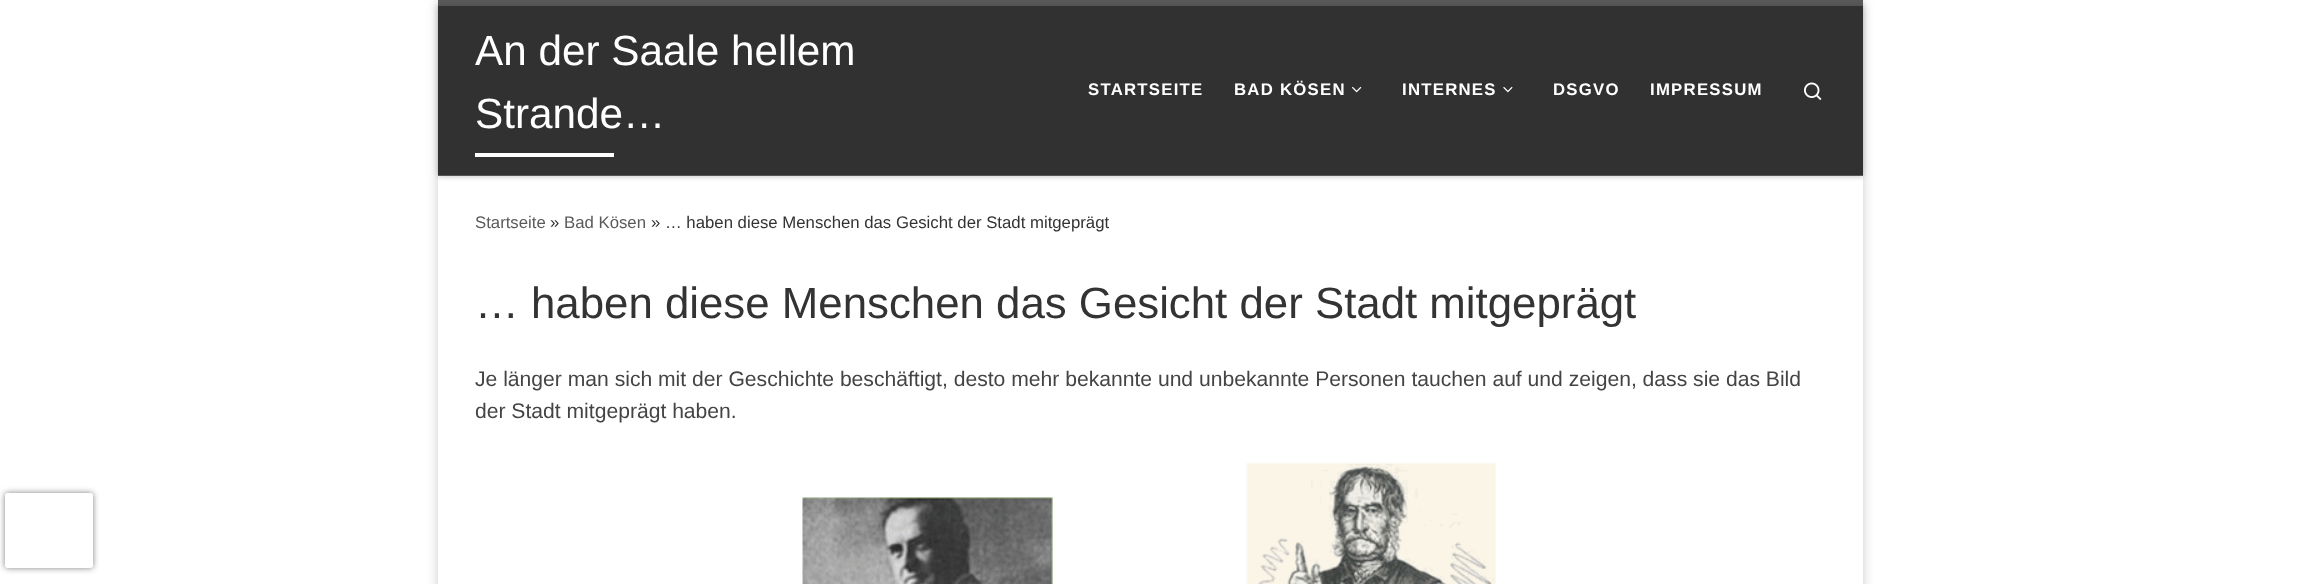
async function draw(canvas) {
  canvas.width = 2300
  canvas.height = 584
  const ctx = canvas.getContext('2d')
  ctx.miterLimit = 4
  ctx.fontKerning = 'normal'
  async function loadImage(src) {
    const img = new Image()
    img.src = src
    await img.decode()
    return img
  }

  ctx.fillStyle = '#fff'
  ctx.fillRect(0, 0, 2300, 584)
  ctx.fillStyle = '#00000033'
  ctx.filter = 'blur(6px)'
  ctx.beginPath()
  ctx.rect(438, 0, 1425, 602)
  ctx.fill()
  ctx.filter = 'none'
  ctx.fillStyle = '#fff'
  ctx.fillRect(438, 176, 1425, 408)
  ctx.fillStyle = '#66666614'
  ctx.filter = 'blur(1px)'
  ctx.beginPath()
  ctx.rect(438, 3, 1425, 176)
  ctx.fill()
  ctx.filter = 'none'
  ctx.fillStyle = '#5a5a5a'
  ctx.fillRect(438, 0, 1425, 6)
  ctx.fillStyle = '#444'
  ctx.fillRect(438, 175, 1425, 1)
  ctx.fillStyle = '#ffffff26'
  ctx.beginPath()
  ctx.moveTo(438, 175)
  ctx.lineTo(438, 176)
  ctx.lineTo(1863, 176)
  ctx.lineTo(1863, 8)
  ctx.lineTo(1862, 8)
  ctx.lineTo(1862, 175)
  ctx.closePath()
  ctx.fill()
  ctx.fillStyle = '#00000033'
  ctx.filter = 'blur(3px)'
  ctx.beginPath()
  ctx.rect(438, 6, 1425, 169)
  ctx.fill()
  ctx.filter = 'none'
  ctx.fillStyle = '#313131'
  ctx.fillRect(438, 6, 1425, 169)
  ctx.font = '42.25px Liberation Sans'
  ctx.fillStyle = '#fff'
  ctx.fillText('An der Saale hellem', 475, 65)
  ctx.fillText('Strande…', 475, 128)
  ctx.fillRect(475, 153, 139, 4)
  ctx.letterSpacing = '1.25px'
  ctx.font = 'bold 16.75px Liberation Sans'
  ctx.fillText('STARTSEITE', 1088, 95)
  ctx.fillText('BAD KÖSEN', 1234, 95)
  ctx.drawImage(await loadImage('image0.png'), 1352, 86, 10, 7)
  ctx.fillText('INTERNES', 1402, 95)
  ctx.drawImage(await loadImage('image1.png'), 1503, 86, 10, 7)
  ctx.fillText('DSGVO', 1553, 95)
  ctx.fillText('IMPRESSUM', 1650, 95)
  ctx.drawImage(await loadImage('image2.png'), 1804, 82, 18, 19)
  ctx.letterSpacing = '0px'
  ctx.font = '16.75px Liberation Sans'
  ctx.fillStyle = '#5a5a5a'
  ctx.fillText('Startseite', 475, 228)
  ctx.fillStyle = '#333'
  ctx.fillText('»', 550, 228)
  ctx.fillStyle = '#5a5a5a'
  ctx.fillText('Bad Kösen', 564, 228)
  ctx.fillStyle = '#333'
  ctx.fillText('» … haben diese Menschen das Gesicht der Stadt mitgeprägt', 651, 228)
  ctx.font = '43.8px Liberation Sans'
  ctx.fillText('… haben diese Menschen das Gesicht der Stadt mitgeprägt', 475, 318)
  ctx.font = '21.12px Liberation Sans'
  ctx.fillStyle = '#444'
  ctx.fillText('Je länger man sich mit der Geschichte beschäftigt, desto mehr bekannte und unbekannte Personen tauchen auf und zeigen, dass sie das Bild', 475, 386)
  ctx.fillText('der Stadt mitgeprägt haben.', 475, 418)
  ctx.drawImage(await loadImage('image3.png'), 802, 462, 694, 122)
  ctx.save()
  ctx.beginPath()
  ctx.moveTo(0, 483)
  ctx.lineTo(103, 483)
  ctx.lineTo(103, 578)
  ctx.lineTo(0, 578)
  ctx.closePath()
  ctx.moveTo(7.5, 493)
  ctx.lineTo(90.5, 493)
  ctx.bezierCurveTo(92, 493, 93, 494, 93, 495.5)
  ctx.lineTo(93, 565.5)
  ctx.bezierCurveTo(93, 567, 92, 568, 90.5, 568)
  ctx.lineTo(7.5, 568)
  ctx.bezierCurveTo(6, 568, 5, 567, 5, 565.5)
  ctx.lineTo(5, 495.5)
  ctx.bezierCurveTo(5, 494, 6, 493, 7.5, 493)
  ctx.closePath()
  ctx.clip('evenodd')
  ctx.fillStyle = '#808080'
  ctx.filter = 'blur(3px)'
  ctx.beginPath()
  ctx.roundRect(5, 493, 88, 75, 2.5)
  ctx.fill()
  ctx.filter = 'none'
  ctx.restore()
}

draw(document.querySelector('canvas'))
